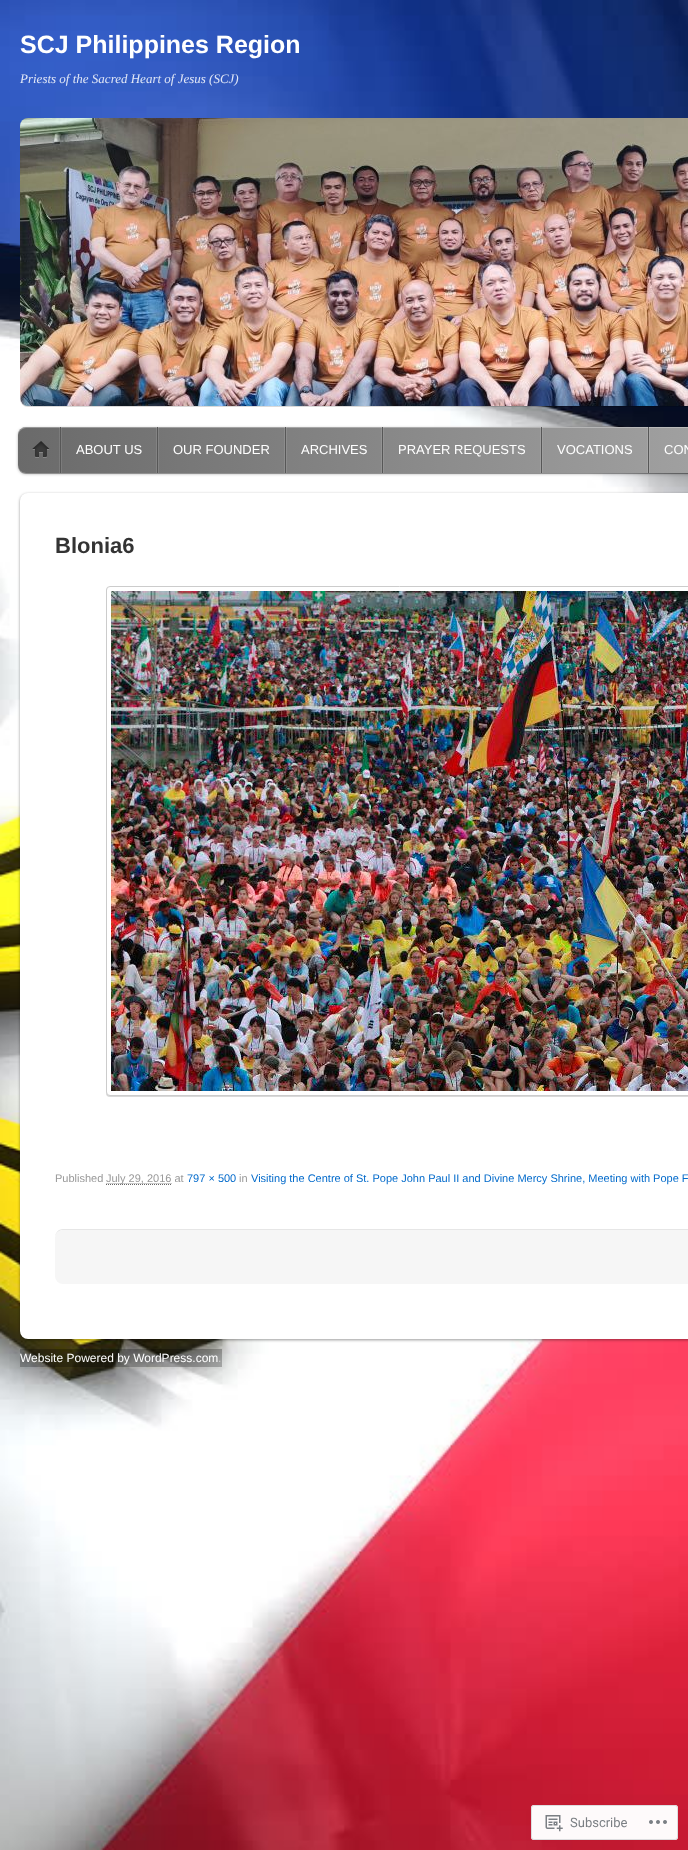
async function draw(canvas) {
  canvas.width = 688
  canvas.height = 1850
  const ctx = canvas.getContext('2d')
  ctx.miterLimit = 4
  ctx.fontKerning = 'normal'
  async function loadImage(src) {
    const img = new Image()
    img.src = src
    await img.decode()
    return img
  }
  let gradient

  ctx.fillStyle = '#fff'
  ctx.fillRect(0, 0, 688, 1850)
  ctx.drawImage(await loadImage('image0.png'), 0, 0, 688, 1850)
  ctx.font = 'bold 25px Liberation Sans'
  ctx.fillText('SCJ Philippines Region', 20, 53)
  ctx.font = 'italic 13px Liberation Serif'
  ctx.fillStyle = '#e1e7f6'
  ctx.fillText('Priests of the Sacred Heart of Jesus (SCJ)', 20, 83)
  ctx.fillStyle = '#00000026'
  ctx.filter = 'blur(0.5px)'
  ctx.beginPath()
  ctx.roundRect(20, 119, 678, 288, 8)
  ctx.fill()
  ctx.filter = 'none'
  ctx.drawImage(await loadImage('image1.png'), 20, 118, 668, 288)
  ctx.fillStyle = '#0000004d'
  ctx.filter = 'blur(1.5px)'
  ctx.beginPath()
  ctx.roundRect(18, 428, 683, 46, 8)
  ctx.fill()
  ctx.filter = 'none'
  ctx.beginPath()
  ctx.moveTo(18, 465)
  ctx.bezierCurveTo(18, 470, 21, 474, 26, 474)
  ctx.lineTo(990, 474)
  ctx.bezierCurveTo(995, 474, 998, 470, 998, 465)
  ctx.bezierCurveTo(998, 469, 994, 473, 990, 473)
  ctx.lineTo(26, 473)
  ctx.bezierCurveTo(22, 473, 18, 469, 18, 465)
  ctx.closePath()
  ctx.fill()
  gradient = ctx.createLinearGradient(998, 450, 18, 450)
  gradient.addColorStop(0, '#b9b9b9')
  gradient.addColorStop(1, '#6a6a6a')
  ctx.fillStyle = gradient
  ctx.beginPath()
  ctx.roundRect(18, 427, 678, 46, 8)
  ctx.fill()
  ctx.fillStyle = '#ffffff4d'
  ctx.beginPath()
  ctx.moveTo(26, 428)
  ctx.lineTo(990, 428)
  ctx.bezierCurveTo(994, 428, 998, 432, 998, 436)
  ctx.bezierCurveTo(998, 431, 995, 427, 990, 427)
  ctx.lineTo(26, 427)
  ctx.bezierCurveTo(21, 427, 18, 431, 18, 436)
  ctx.bezierCurveTo(18, 432, 22, 428, 26, 428)
  ctx.closePath()
  ctx.fill()
  ctx.fillStyle = '#ffffff1a'
  ctx.fillRect(61, 427, 1, 46)
  ctx.fillRect(59, 427, 1, 46)
  ctx.fillStyle = '#575757'
  ctx.fillRect(60, 427, 1, 46)
  ctx.drawImage(await loadImage('image2.png'), 32, 441, 18, 17)
  ctx.fillStyle = '#ffffff1a'
  ctx.fillRect(158, 427, 1, 46)
  ctx.fillRect(156, 427, 1, 46)
  ctx.fillStyle = '#575757'
  ctx.fillRect(157, 427, 1, 46)
  ctx.font = '13px Liberation Sans'
  ctx.fillStyle = '#fff'
  ctx.fillText('ABOUT US', 76, 454)
  ctx.fillStyle = '#ffffff1a'
  ctx.fillRect(286, 427, 1, 46)
  ctx.fillRect(284, 427, 1, 46)
  ctx.fillStyle = '#575757'
  ctx.fillRect(285, 427, 1, 46)
  ctx.fillStyle = '#fff'
  ctx.fillText('OUR FOUNDER', 173, 454)
  ctx.fillStyle = '#ffffff1a'
  ctx.fillRect(383, 427, 1, 46)
  ctx.fillRect(381, 427, 1, 46)
  ctx.fillStyle = '#575757'
  ctx.fillRect(382, 427, 1, 46)
  ctx.fillStyle = '#fff'
  ctx.fillText('ARCHIVES', 301, 454)
  ctx.fillStyle = '#ffffff1a'
  ctx.fillRect(542, 427, 1, 46)
  ctx.fillRect(540, 427, 1, 46)
  ctx.fillStyle = '#575757'
  ctx.fillRect(541, 427, 1, 46)
  ctx.fillStyle = '#fff'
  ctx.fillText('PRAYER REQUESTS', 398, 454)
  ctx.fillStyle = '#ffffff1a'
  ctx.fillRect(649, 427, 1, 46)
  ctx.fillRect(647, 427, 1, 46)
  ctx.fillStyle = '#575757'
  ctx.fillRect(648, 427, 1, 46)
  ctx.fillStyle = '#fff'
  ctx.fillText('VOCATIONS', 557, 454)
  ctx.fillText('CON', 664, 454)
  ctx.fillStyle = '#00000066'
  ctx.filter = 'blur(1.5px)'
  ctx.beginPath()
  ctx.roundRect(20, 494, 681, 846, 8)
  ctx.fill()
  ctx.filter = 'none'
  ctx.fillStyle = '#fff'
  ctx.beginPath()
  ctx.roundRect(20, 493, 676, 846, 8)
  ctx.fill()
  ctx.font = 'bold 22px Liberation Sans'
  ctx.fillStyle = '#333'
  ctx.fillText('Blonia6', 55, 553)
  ctx.fillStyle = '#00000026'
  ctx.filter = 'blur(0.5px)'
  ctx.beginPath()
  ctx.roundRect(106, 587, 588, 510, 4)
  ctx.fill()
  ctx.filter = 'none'
  ctx.fillStyle = '#fff'
  ctx.beginPath()
  ctx.roundRect(106.5, 586.5, 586, 509, 3.5)
  ctx.fill()
  ctx.strokeStyle = '#ccc'
  ctx.stroke()
  ctx.drawImage(await loadImage('image3.png'), 111, 591, 577, 500)
  ctx.font = '11px Liberation Sans'
  ctx.fillStyle = '#999'
  ctx.fillText('Published', 55, 1182)
  ctx.beginPath()
  ctx.moveTo(106, 1184.5)
  ctx.lineTo(172, 1184.5)
  ctx.strokeStyle = '#666'
  ctx.setLineDash([1, 1])
  ctx.stroke()
  ctx.beginPath()
  ctx.moveTo(106.5, 1183.5)
  ctx.lineTo(172, 1183.5)
  ctx.strokeStyle = '#999'
  ctx.stroke()
  ctx.fillText('July 29, 2016 at', 106, 1182)
  ctx.fillStyle = '#026acb'
  ctx.fillText('797 × 500', 187, 1182)
  ctx.fillStyle = '#999'
  ctx.fillText('in', 239, 1182)
  ctx.fillStyle = '#026acb'
  ctx.fillText('Visiting the Centre of St. Pope John Paul II and Divine Mercy Shrine, Meeting with Pope F', 251, 1182)
  ctx.fillStyle = '#e6e6e6'
  ctx.beginPath()
  ctx.moveTo(63, 1229)
  ctx.bezierCurveTo(58, 1229, 55, 1233, 55, 1238)
  ctx.bezierCurveTo(55, 1234, 59, 1230, 63, 1230)
  ctx.lineTo(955, 1230)
  ctx.bezierCurveTo(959, 1230, 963, 1234, 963, 1238)
  ctx.bezierCurveTo(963, 1233, 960, 1229, 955, 1229)
  ctx.closePath()
  ctx.fill()
  ctx.fillStyle = '#f6f6f6'
  ctx.beginPath()
  ctx.roundRect(55, 1230, 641, 54, 8)
  ctx.fill()
  ctx.fillStyle = '#00000040'
  ctx.fillRect(20, 1349, 202, 18)
  ctx.font = '12px Liberation Sans'
  ctx.fillStyle = '#fff'
  ctx.fillText('Website Powered by WordPress.com', 20, 1362)
  ctx.fillStyle = '#ccc'
  ctx.fillText('.', 218, 1362)
  ctx.fillStyle = '#fffffffa'
  ctx.beginPath()
  ctx.roundRect(531, 1805, 147, 35, 3)
  ctx.fill()
  ctx.beginPath()
  ctx.roundRect(531.5, 1805.5, 146, 34, 2.5)
  ctx.strokeStyle = '#dcdcdefa'
  ctx.setLineDash([])
  ctx.stroke()
  ctx.drawImage(await loadImage('image4.png'), 545, 1815, 18, 17)
  ctx.font = '13px Roboto'
  ctx.fillStyle = '#7b7f84'
  ctx.fillText('Subscribe', 570, 1827)
  ctx.drawImage(await loadImage('image5.png'), 649, 1820, 18, 4)
}

draw(document.querySelector('canvas'))
